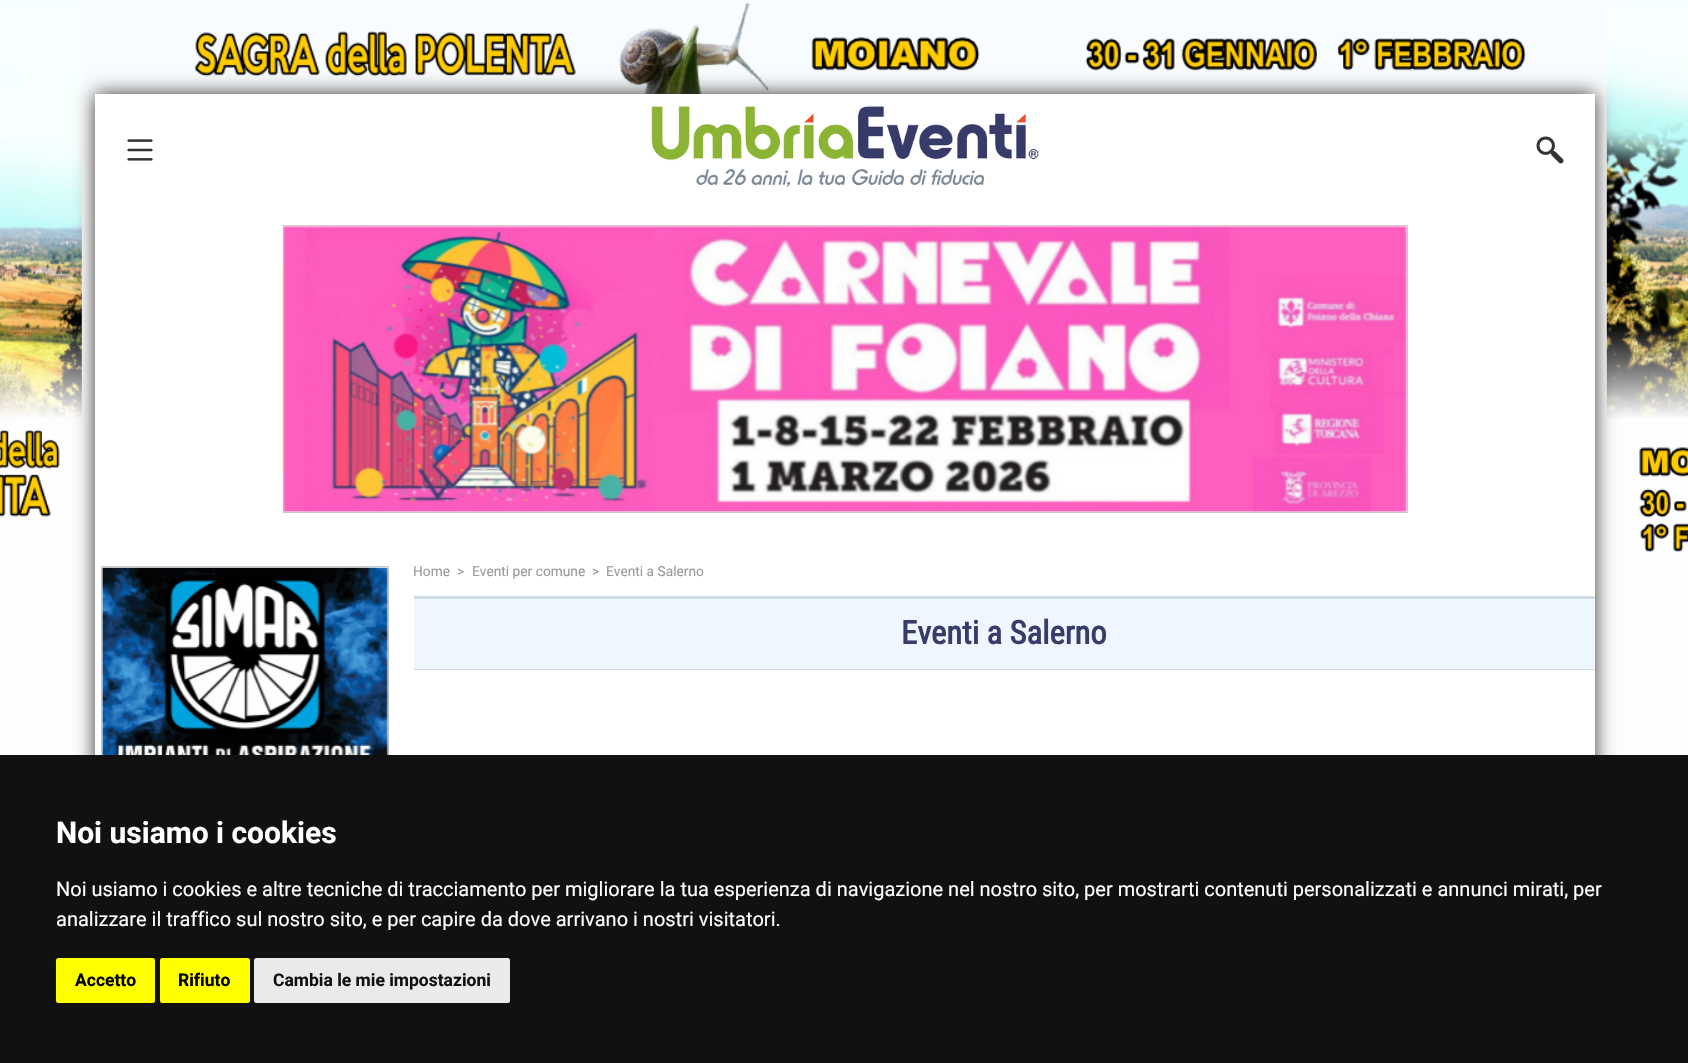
void draw(SkCanvas* c) {
SkPaint p;
p.setAntiAlias(true);
auto F=[&](const char* family, int weight, float size, bool italic = false){SkFontStyle style(weight, SkFontStyle::kNormal_Width,italic ? SkFontStyle::kItalic_Slant : SkFontStyle::kUpright_Slant);SkFont result(fontMgr->matchFamilyStyle(family, style), size);result.setSubpixel(true);return result;};
auto T=[&](const char* s, float x, float y, const SkFont& font){c->drawString(s, x, y, font, p);};
auto R=[&](float x, float y, float w, float h){c->drawRect(SkRect::MakeXYWH(x, y, w, h), p);};
auto Q=[&](float x, float y, float w, float h, float radius){c->drawRoundRect(SkRect::MakeXYWH(x, y, w, h), radius, radius, p);};
auto I=[&](const char* path, float x, float y, float w, float h){auto image = SkImages::DeferredFromEncodedData(SkData::MakeFromFileName(path));c->drawImageRect(image, SkRect::MakeXYWH(x, y, w, h), SkSamplingOptions());};
c->clear(0xfff9fcfe);
I("1.png",0,2,1688,753);
p.setColor(0xff333333);
p.setMaskFilter(SkMaskFilter::MakeBlur(kNormal_SkBlurStyle, 9.5));
c->drawRect(SkRect::MakeXYWH(95,94,1500,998),p);
p.setMaskFilter(nullptr);
p.setColor(0xffffffff);
R(95,94,1500,661);
I("2.png",127,139,26,22);
I("3.png",651,106,388,81);
I("4.png",1536,136,28,28);
I("5.png",282,264,1,210);
p.setStroke(true);
p.setStrokeWidth(1);
p.setColor(0xffcccccc);
c->drawRect(SkRect::MakeXYWH(283.5,225.5,1124,287),p);
I("6.png",283,226,1125,287);
c->drawRect(SkRect::MakeXYWH(101.5,566.5,287,237),p);
I("7.png",102,567,287,188);
auto f1 = F("Roboto",400,13.75);
p.setStroke(false);
p.setColor(0xff999999);
T("Home",413,576,f1);
T(">",457,576,f1);
T("Eventi per comune",472,576,f1);
T(">",592,576,f1);
T("Eventi a Salerno",606,576,f1);
p.setColor(0xffeef6ff);
R(414,599,1181,70);
p.setColor(0xffd0dbe8);
R(414,596,1181,3);
R(414,669,1181,1);
auto f2 = F("Roboto Condensed",700,32.5);
p.setColor(0xff383c6a);
T("Eventi a Salerno",901,644,f2);
p.setColor(0xff111111);
R(0,755,1688,308);
auto f3 = F("Roboto",700,30);
p.setColor(0xffffffff);
T("Noi usiamo i cookies",56,843,f3);
auto f4 = F("Roboto",400,20);
T("Noi usiamo i cookies e altre tecniche di tracciamento per migliorare la tua esperienza di navigazione nel nostro sito, per mostrarti contenuti personalizzati e annunci mirati, per",56,896,f4);
T("analizzare il traffico sul nostro sito, e per capire da dove arrivano i nostri visitatori.",56,926,f4);
p.setColor(0xffffff00);
Q(56,958,99,45,2.5);
auto f5 = F("Roboto",700,17.5);
p.setColor(0xff000000);
T("Accetto",75,986,f5);
p.setColor(0xffffff00);
Q(160,958,90,45,2.5);
p.setColor(0xff000000);
T("Rifiuto",178,986,f5);
p.setColor(0xffeaeaea);
Q(254,958,256,45,2.5);
p.setColor(0xff111111);
T("Cambia le mie impostazioni",273,986,f5);
}
